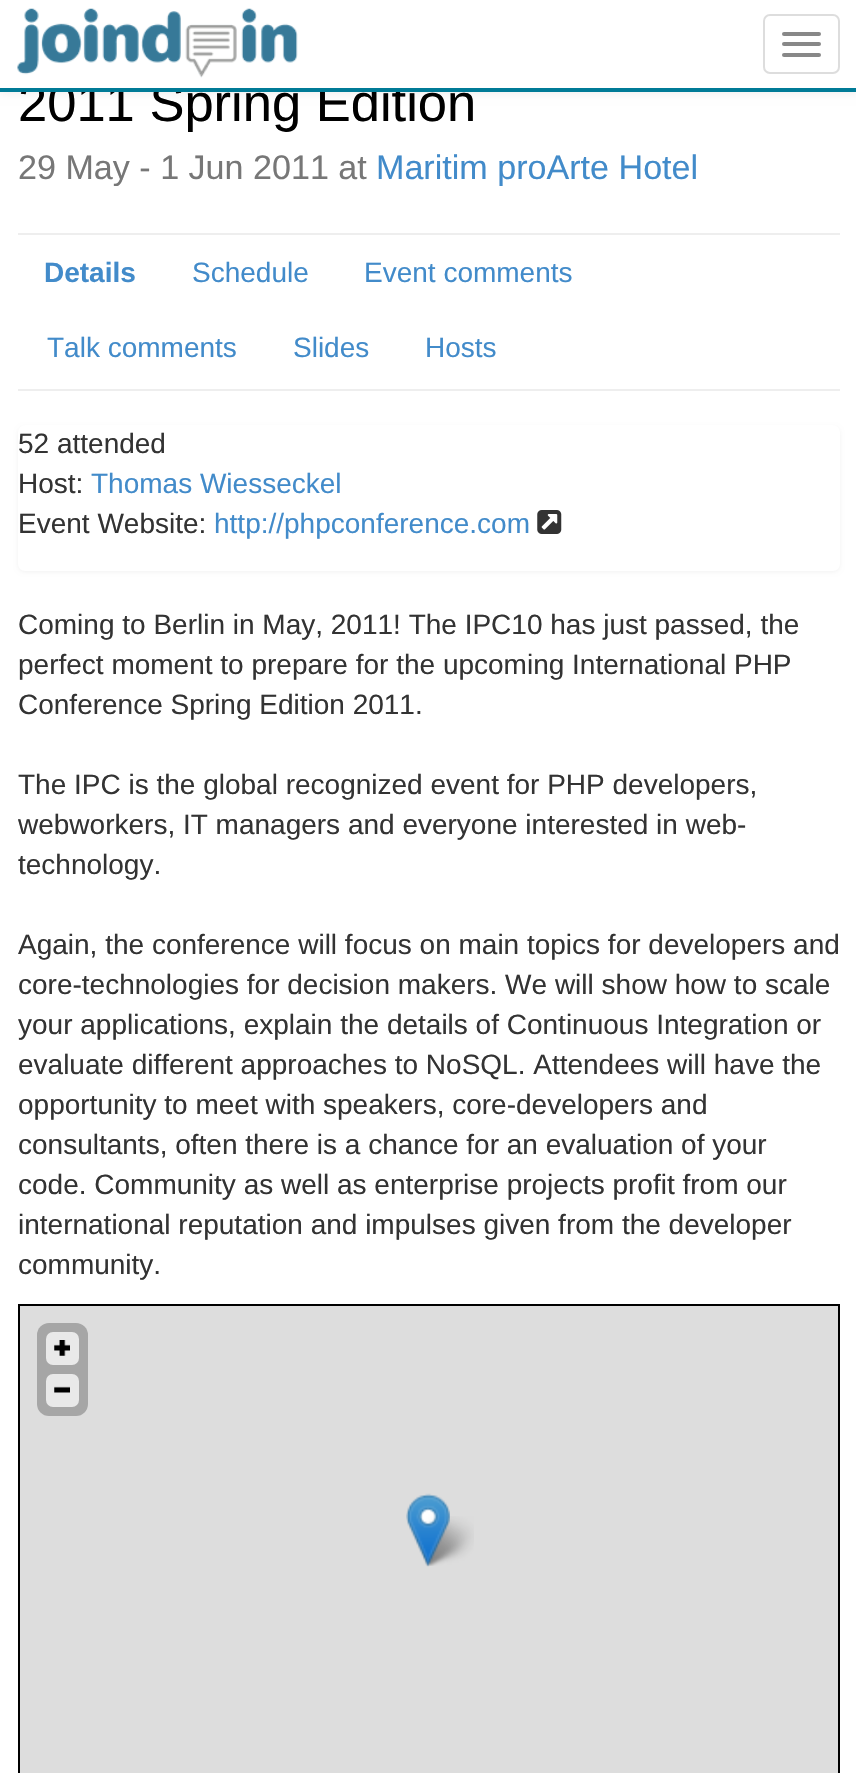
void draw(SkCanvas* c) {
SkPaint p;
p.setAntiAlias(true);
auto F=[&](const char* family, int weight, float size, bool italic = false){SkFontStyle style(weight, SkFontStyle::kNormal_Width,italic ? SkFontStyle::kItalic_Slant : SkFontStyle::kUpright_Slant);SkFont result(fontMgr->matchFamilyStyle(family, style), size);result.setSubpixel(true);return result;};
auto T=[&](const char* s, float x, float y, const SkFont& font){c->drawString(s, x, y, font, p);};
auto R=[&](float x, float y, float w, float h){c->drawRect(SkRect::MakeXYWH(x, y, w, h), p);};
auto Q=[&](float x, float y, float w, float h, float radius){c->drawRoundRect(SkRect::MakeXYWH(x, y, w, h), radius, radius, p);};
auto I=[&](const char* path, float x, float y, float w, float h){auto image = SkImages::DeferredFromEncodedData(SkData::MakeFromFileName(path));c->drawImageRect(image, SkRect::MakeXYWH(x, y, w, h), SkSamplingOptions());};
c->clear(0xffffffff);
p.setColor(0x12000000);
p.setMaskFilter(SkMaskFilter::MakeBlur(kNormal_SkBlurStyle, 4.5));
c->drawRect(SkRect::MakeXYWH(0,2,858,91),p);
p.setMaskFilter(nullptr);
auto f1 = F("Liberation Sans",400,52.5);
p.setColor(0xff000000);
T("2011 Spring Edition",18,121,f1);
p.setColor(0xffffffff);
R(0,0,856,88);
p.setColor(0xff007b97);
R(0,88,856,4);
I("1.png",17,8,281,70);
p.setStroke(true);
p.setStrokeWidth(2);
p.setColor(0xffdddddd);
c->drawRoundRect(SkRect::MakeXYWH(764,15,75,58),6,6,p);
p.setStroke(false);
p.setColor(0xff888888);
Q(782,32,39,4,2);
Q(782,42,39,4,2);
Q(782,53,39,4,2);
p.setColor(0xffeeeeee);
R(18,389,822,2);
auto f2 = F("Liberation Sans",400,34.1);
p.setColor(0xff777777);
T("29 May - 1 Jun 2011 at",18,179,f2);
p.setColor(0xff428bca);
T("Maritim proArte Hotel",376,179,f2);
p.setColor(0xffeeeeee);
R(18,233,822,2);
auto f3 = F("Liberation Sans",700,28);
p.setColor(0xff428bca);
T("Details",44,282,f3);
auto f4 = F("Liberation Sans",400,28);
T("Schedule",192,282,f4);
T("Event comments",364,282,f4);
T("Talk comments",47,357,f4);
T("Slides",293,357,f4);
T("Hosts",425,357,f4);
p.setColor(0x0d000000);
p.setMaskFilter(SkMaskFilter::MakeBlur(kNormal_SkBlurStyle, 2));
c->drawRoundRect(SkRect::MakeXYWH(18,427,822,145),7,7,p);
p.setMaskFilter(nullptr);
p.setColor(0xffffffff);
Q(18,425,822,146,7);
p.setColor(0xff333333);
T("52 attended",18,453,f4);
T("Host:",18,493,f4);
p.setColor(0xff428bca);
T("Thomas Wiesseckel",91,493,f4);
p.setColor(0xff333333);
T("Event Website:",18,533,f4);
p.setColor(0xff428bca);
T("http://phpconference.com",214,533,f4);
I("2.png",537,510,25,24);
p.setColor(0xff333333);
T("Coming to Berlin in May, 2011! The IPC10 has just passed, the",18,634,f4);
T("perfect moment to prepare for the upcoming International PHP",18,674,f4);
T("Conference Spring Edition 2011.",18,714,f4);
T("The IPC is the global recognized event for PHP developers,",18,794,f4);
T("webworkers, IT managers and everyone interested in web-",18,834,f4);
T("technology.",18,874,f4);
T("Again, the conference will focus on main topics for developers and",18,954,f4);
T("core-technologies for decision makers. We will show how to scale",18,994,f4);
T("your applications, explain the details of Continuous Integration or",18,1034,f4);
T("evaluate different approaches to NoSQL. Attendees will have the",18,1074,f4);
T("opportunity to meet with speakers, core-developers and",18,1114,f4);
T("consultants, often there is a chance for an evaluation of your",18,1154,f4);
T("code. Community as well as enterprise projects profit from our",18,1194,f4);
T("international reputation and impulses given from the developer",18,1234,f4);
T("community.",18,1274,f4);
p.setColor(0xffdddddd);
c->drawRect(SkRect::MakeXYWH(19,1305,820,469),p);
p.setStroke(true);
p.setColor(0xff000000);
c->drawRect(SkRect::MakeXYWH(19,1305,820,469),p);
p.setStroke(false);
p.setColor(0xffa6a6a6);
Q(37,1323,51,93,12);
p.setColor(0xffe9e9e9);
Q(46,1332,33,33,7);
I("3.png",54,1340,16,16);
Q(46,1374,33,33,7);
I("4.png",54,1386,16,7);
I("6.png",422,1516,52,50);
I("5.png",406,1493,44,74);
}
